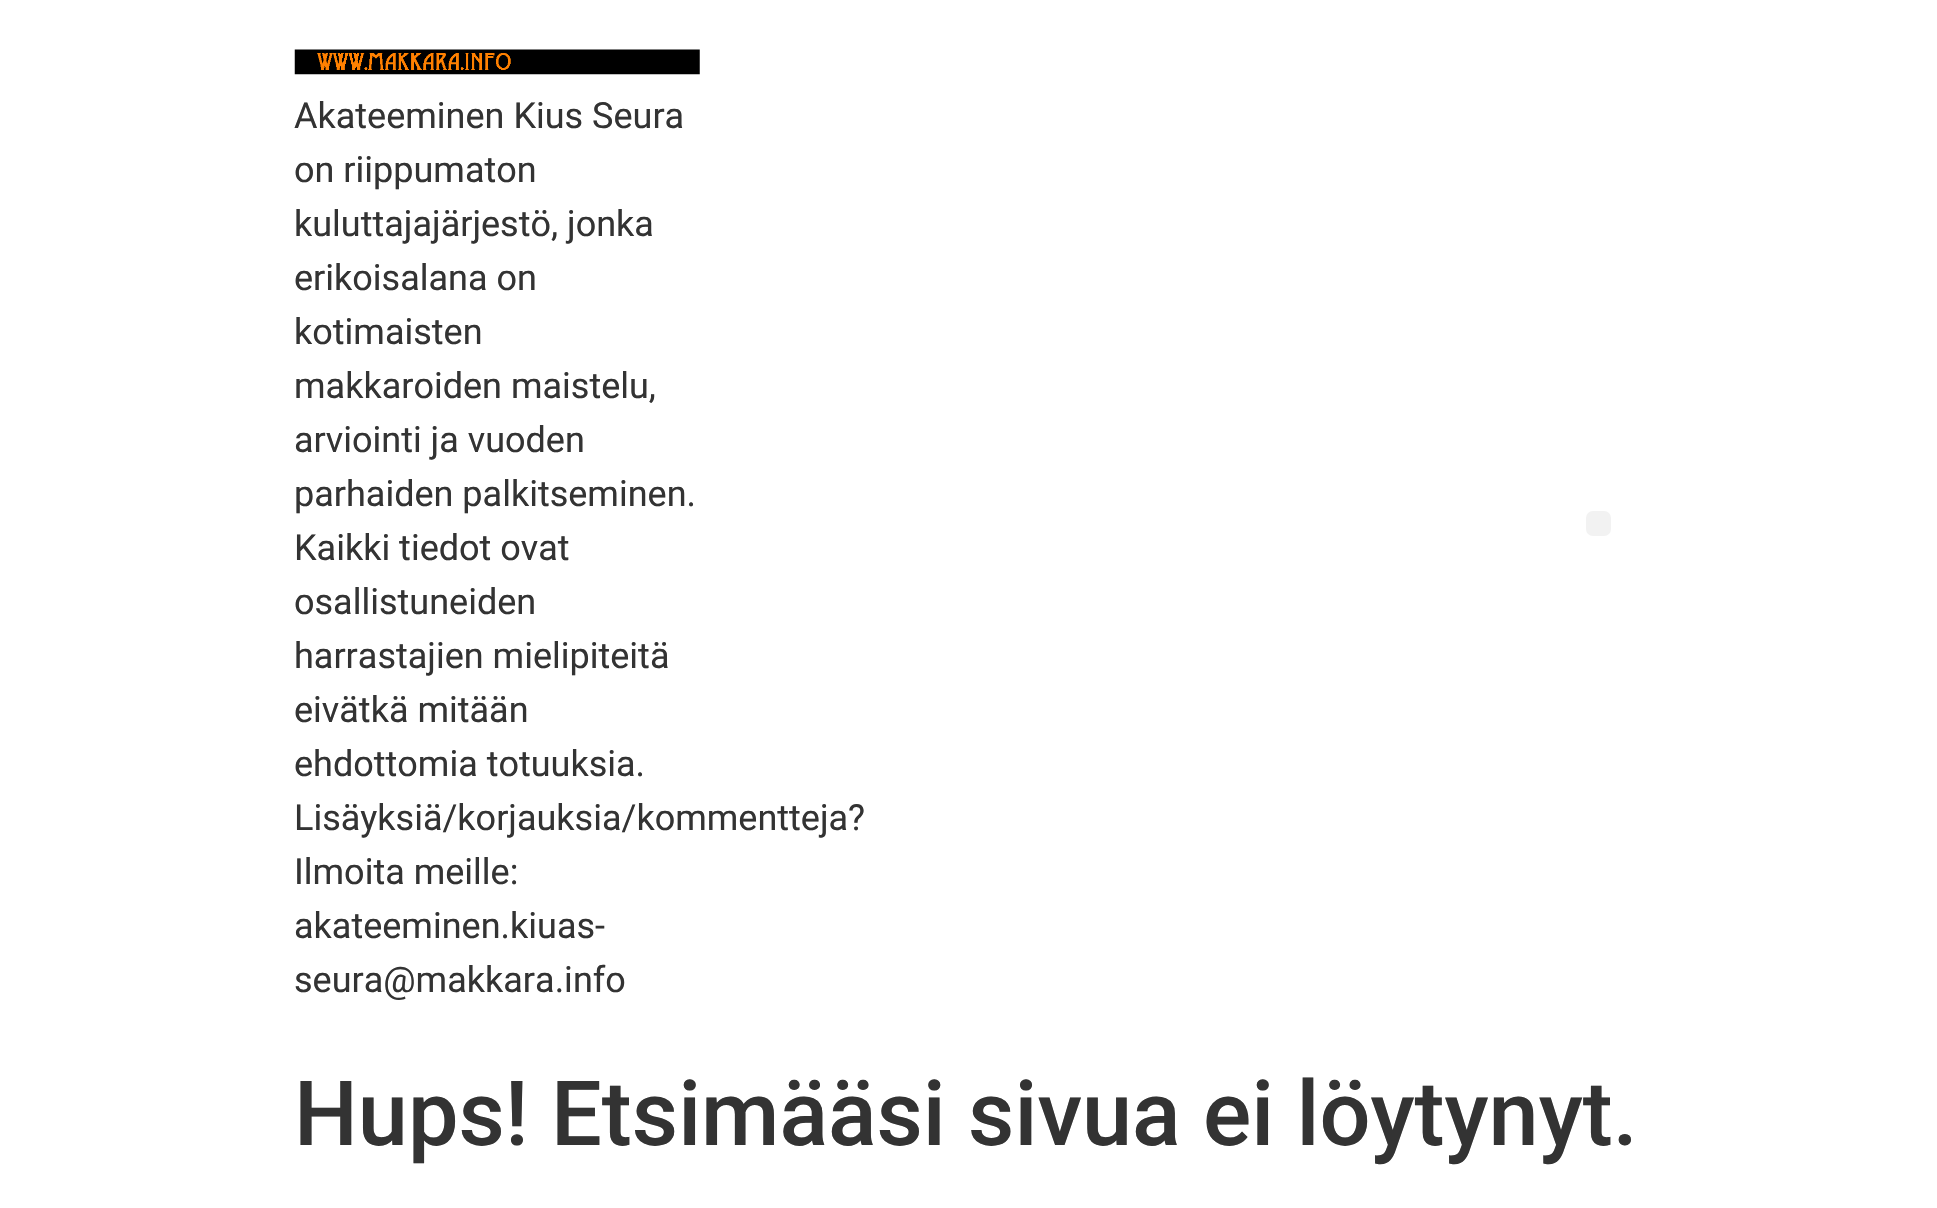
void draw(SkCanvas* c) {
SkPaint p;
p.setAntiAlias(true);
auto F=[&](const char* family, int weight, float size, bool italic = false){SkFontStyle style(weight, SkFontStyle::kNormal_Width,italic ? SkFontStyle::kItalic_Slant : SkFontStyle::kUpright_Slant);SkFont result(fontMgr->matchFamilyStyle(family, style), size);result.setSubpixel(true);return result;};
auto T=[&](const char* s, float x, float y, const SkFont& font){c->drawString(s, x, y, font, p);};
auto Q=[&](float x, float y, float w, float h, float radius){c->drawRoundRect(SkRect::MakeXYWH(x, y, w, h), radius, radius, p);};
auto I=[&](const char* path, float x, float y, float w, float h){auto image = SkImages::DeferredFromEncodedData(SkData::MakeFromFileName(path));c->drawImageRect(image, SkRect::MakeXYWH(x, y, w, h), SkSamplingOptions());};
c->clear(0xffffffff);
I("1.png",294,49,406,26);
auto f1 = F("Roboto",400,36);
p.setColor(0xff333333);
T("Akateeminen Kius Seura",294,128,f1);
T("on riippumaton",294,182,f1);
T("kuluttajajärjestö, jonka",294,236,f1);
T("erikoisalana on",294,290,f1);
T("kotimaisten",294,344,f1);
T("makkaroiden maistelu,",294,398,f1);
T("arviointi ja vuoden",294,452,f1);
T("parhaiden palkitseminen.",294,506,f1);
T("Kaikki tiedot ovat",294,560,f1);
T("osallistuneiden",294,614,f1);
T("harrastajien mielipiteitä",294,668,f1);
T("eivätkä mitään",294,722,f1);
T("ehdottomia totuuksia.",294,776,f1);
T("Lisäyksiä/korjauksia/kommentteja?",294,830,f1);
T("Ilmoita meille:",294,884,f1);
T("akateeminen.kiuas-",294,938,f1);
T("seura@makkara.info",294,992,f1);
p.setColor(0xfff2f2f2);
Q(1586,511,25,25,7);
auto f2 = F("Roboto",500,90);
p.setColor(0xff333333);
T("Hups! Etsimääsi sivua ei löytynyt.",294,1145,f2);
}
